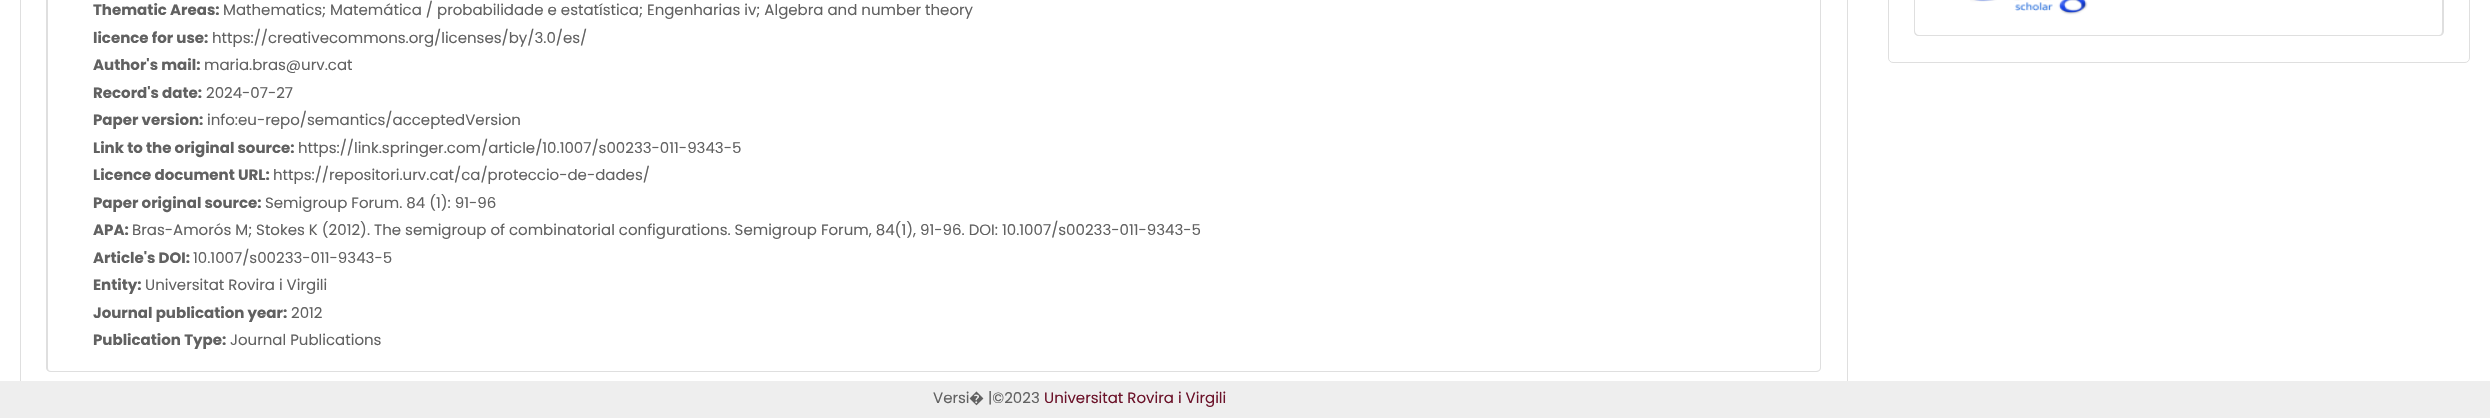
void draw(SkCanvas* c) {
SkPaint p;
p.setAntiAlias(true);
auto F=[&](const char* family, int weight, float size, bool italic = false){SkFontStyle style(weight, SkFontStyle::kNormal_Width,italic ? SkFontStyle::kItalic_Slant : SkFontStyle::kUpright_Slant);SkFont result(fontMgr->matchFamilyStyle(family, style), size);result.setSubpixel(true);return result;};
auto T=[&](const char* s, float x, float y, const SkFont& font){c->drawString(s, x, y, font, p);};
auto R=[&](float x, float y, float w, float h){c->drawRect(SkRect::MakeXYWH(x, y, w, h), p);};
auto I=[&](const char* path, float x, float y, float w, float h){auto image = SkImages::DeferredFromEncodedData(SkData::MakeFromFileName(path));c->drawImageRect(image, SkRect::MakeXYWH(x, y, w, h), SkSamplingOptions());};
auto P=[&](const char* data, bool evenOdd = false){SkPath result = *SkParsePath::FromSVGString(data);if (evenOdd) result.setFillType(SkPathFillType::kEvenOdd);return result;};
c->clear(0xffffffff);
p.setStroke(true);
p.setStrokeWidth(1);
p.setColor(0xffdfdfdf);
c->drawRect(SkRect::MakeXYWH(20.5,-.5,1827,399),p);
p.setStroke(false);
c->drawPath(P("M46-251h1775v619c0 2-2 4-5 4h-1765c-3 0-5-2-5-4zm2 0h1772v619c0 2-2 3-4 3h-1765c-2 0-3-1-3-3z",true),p);
auto f1 = F("Poppins",700,15);
p.setColor(0xff616161);
T("Thematic Areas:",93,15,f1);
auto f2 = F("Poppins",400,15);
T("Mathematics; Matemática / probabilidade e estatística; Engenharias iv; Algebra and number theory",223,15,f2);
T("licence for use:",93,43,f1);
T("https://creativecommons.org/licenses/by/3.0/es/",212,43,f2);
T("Author's mail:",93,70,f1);
T("maria.bras@urv.cat",204,70,f2);
T("Record's date:",93,98,f1);
T("2024-07-27",206,98,f2);
T("Paper version:",93,125,f1);
T("info:eu-repo/semantics/acceptedVersion",207,125,f2);
T("Link to the original source:",93,153,f1);
T("https://link.springer.com/article/10.1007/s00233-011-9343-5",298,153,f2);
T("Licence document URL:",93,180,f1);
T("https://repositori.urv.cat/ca/proteccio-de-dades/",273,180,f2);
T("Paper original source:",93,208,f1);
T("Semigroup Forum. 84 (1): 91-96",265,208,f2);
T("APA:",93,235,f1);
T("Bras-Amorós M; Stokes K (2012). The semigroup of combinatorial configurations. Semigroup Forum, 84(1), 91-96. DOI: 10.1007/s00233-011-9343-5",132,235,f2);
T("Article's DOI:",93,263,f1);
T("10.1007/s00233-011-9343-5",193,263,f2);
T("Entity:",93,290,f1);
T("Universitat Rovira i Virgili",145,290,f2);
T("Journal publication year:",93,318,f1);
T("2012",291,318,f2);
T("Publication Type:",93,345,f1);
T("Journal Publications",230,345,f2);
p.setStroke(true);
p.setColor(0xffdfdfdf);
c->drawRoundRect(SkRect::MakeXYWH(1888.5,-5.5,581,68),4.5,4.5,p);
p.setStroke(false);
c->drawPath(P("M1914-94h530v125c0 3-2 5-5 5h-520c-3 0-5-2-5-5zm1 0h527v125c0 2-1 4-3 4h-520c-2 0-4-2-4-4z",true),p);
I("1.png",1970,0,118,15);
p.setColor(0xffeeeeee);
R(0,381,2490,37);
p.setColor(0xff616161);
T("Versi",933,403,f2);
auto f3 = F("Noto Sans",400,15);
T("�",969,403,f3);
T("|©2023",988,403,f2);
p.setColor(0xff6b1229);
T("Universitat Rovira i Virgili",1044,403,f2);
}
